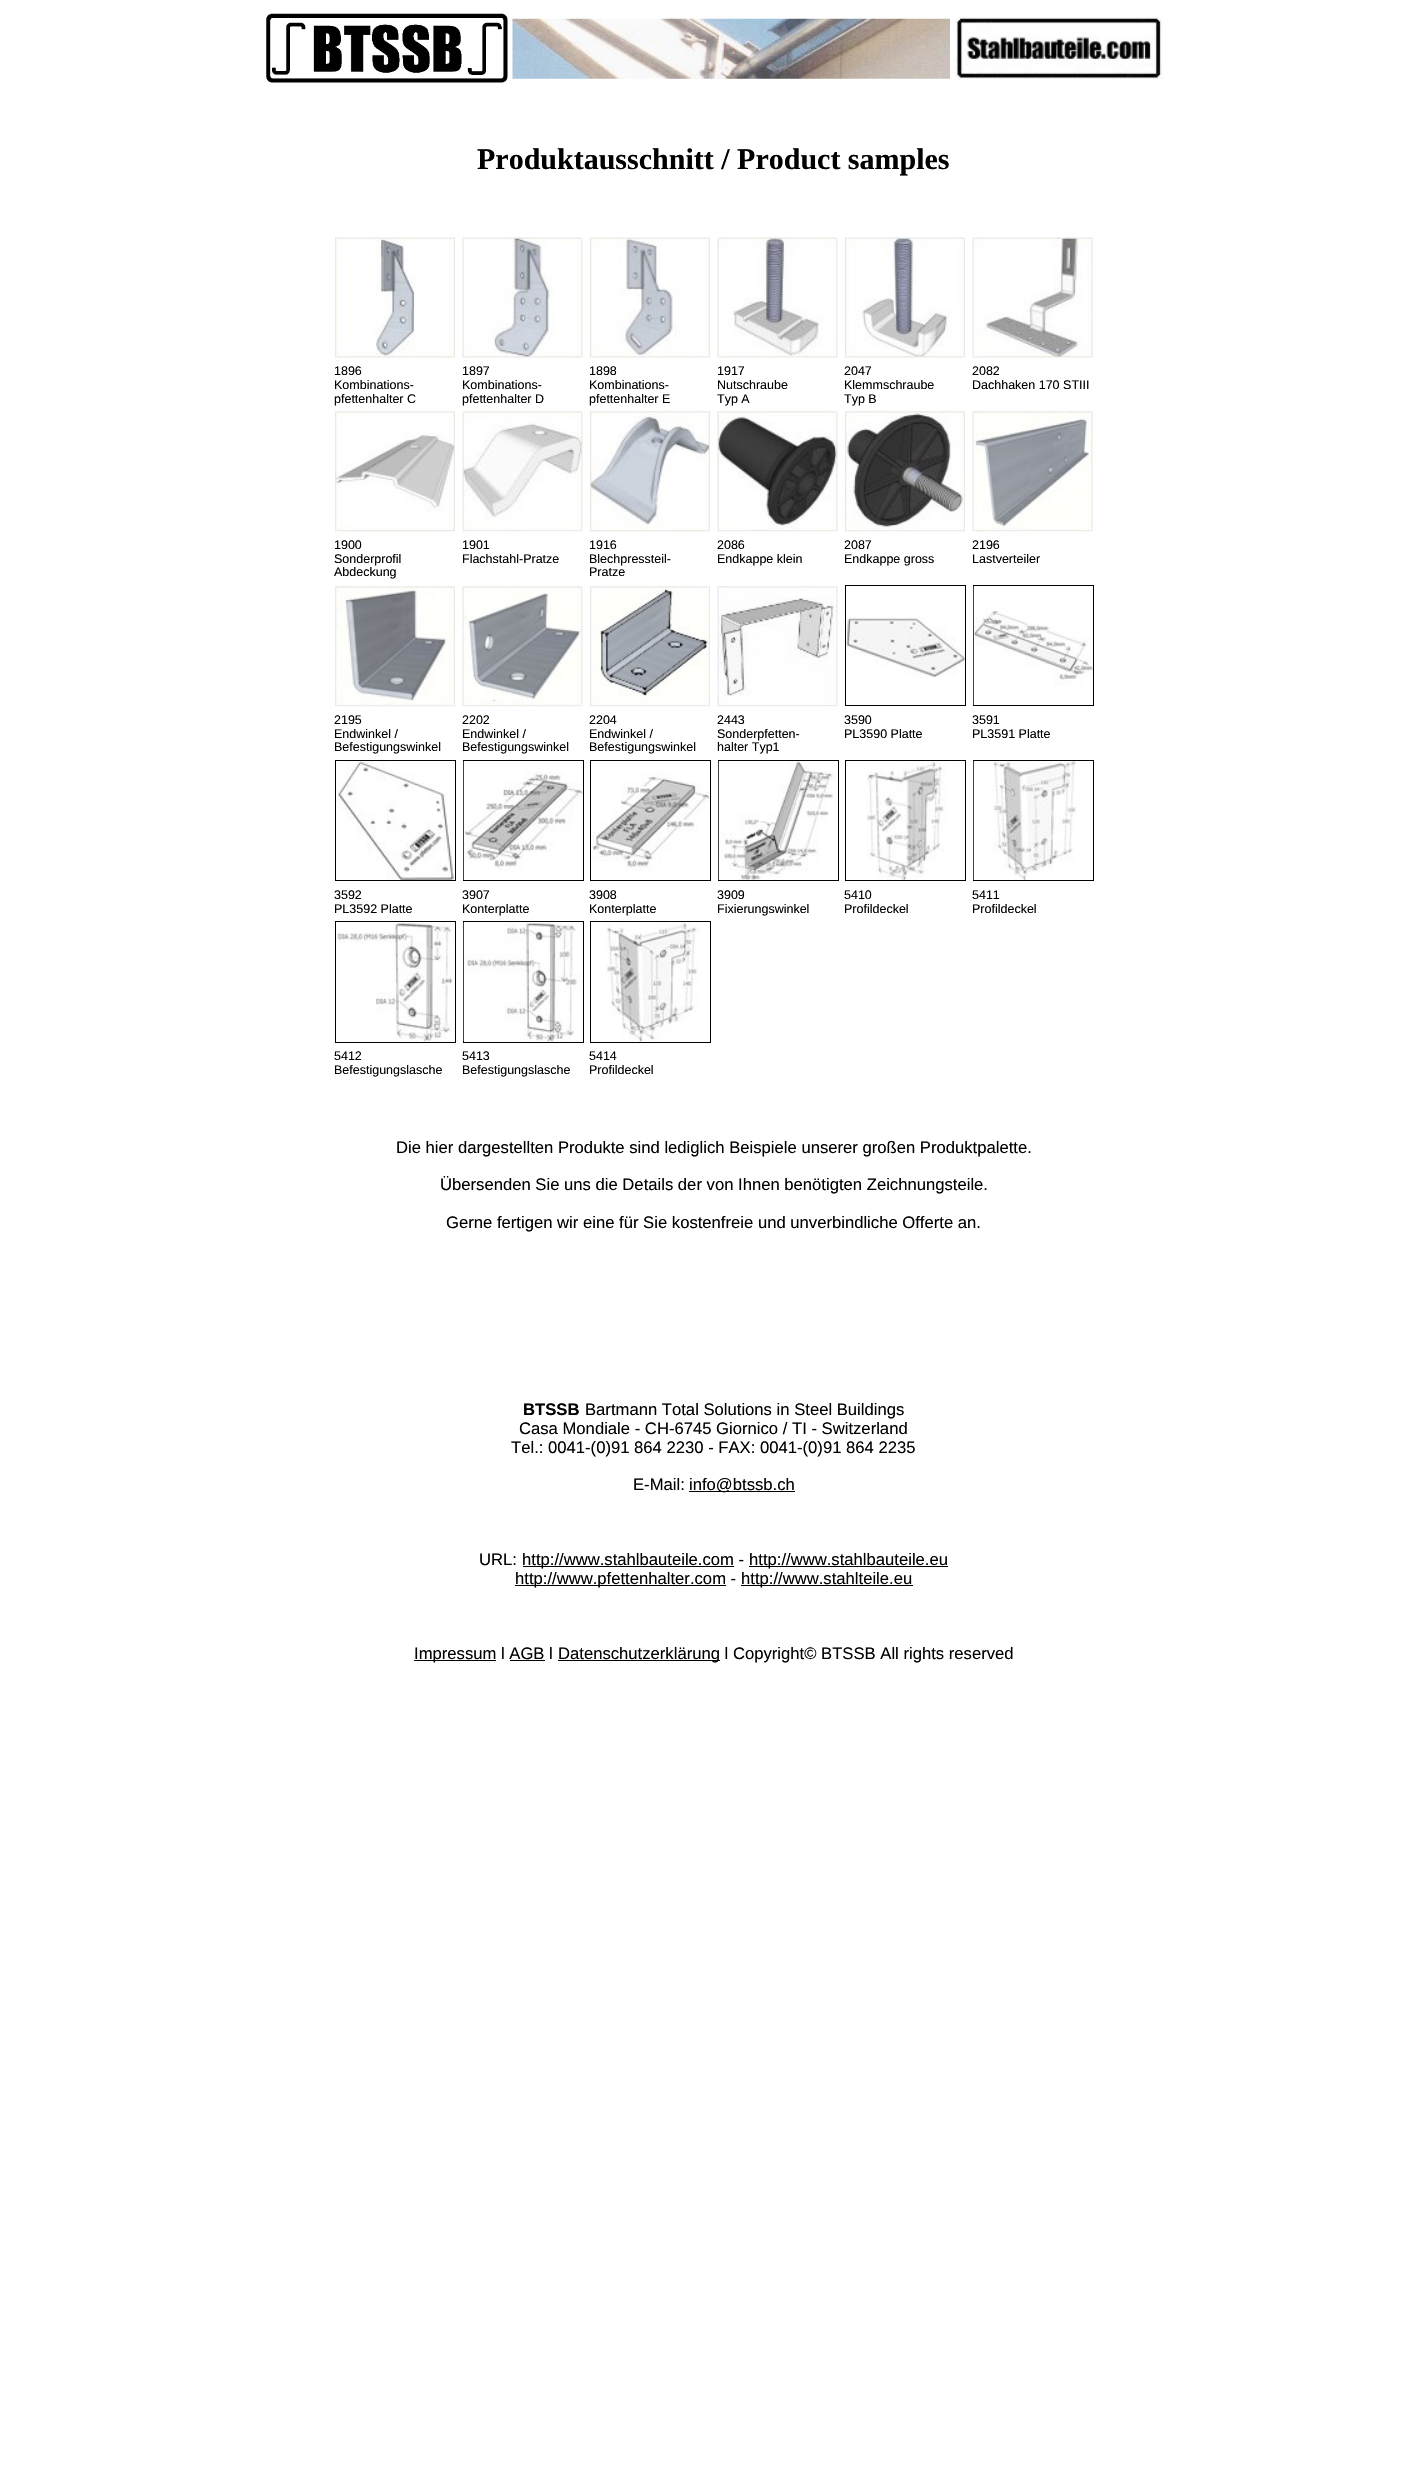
void draw(SkCanvas* c) {
SkPaint p;
p.setAntiAlias(true);
auto F=[&](const char* family, int weight, float size, bool italic = false){SkFontStyle style(weight, SkFontStyle::kNormal_Width,italic ? SkFontStyle::kItalic_Slant : SkFontStyle::kUpright_Slant);SkFont result(fontMgr->matchFamilyStyle(family, style), size);result.setSubpixel(true);return result;};
auto T=[&](const char* s, float x, float y, const SkFont& font){c->drawString(s, x, y, font, p);};
auto R=[&](float x, float y, float w, float h){c->drawRect(SkRect::MakeXYWH(x, y, w, h), p);};
auto I=[&](const char* path, float x, float y, float w, float h){auto image = SkImages::DeferredFromEncodedData(SkData::MakeFromFileName(path));c->drawImageRect(image, SkRect::MakeXYWH(x, y, w, h), SkSamplingOptions());};
c->clear(0xffffffff);
I("1.png",266,13,242,70);
I("2.png",512,18,438,61);
I("3.png",955,17,208,63);
auto f1 = F("Liberation Serif",700,30);
p.setColor(0xff000000);
T("Produktausschnitt / Product samples",477,169,f1);
I("4.png",335,237,120,121);
I("5.png",462,237,121,121);
I("6.png",590,237,120,121);
I("7.png",717,237,121,121);
I("8.png",845,237,120,121);
I("9.png",972,237,121,121);
auto f2 = F("Liberation Sans",400,12.5);
T("1896",334,375,f2);
T("Kombinations-",334,389,f2);
T("pfettenhalter C",334,403,f2);
T("1897",462,375,f2);
T("Kombinations-",462,389,f2);
T("pfettenhalter D",462,403,f2);
T("1898",589,375,f2);
T("Kombinations-",589,389,f2);
T("pfettenhalter E",589,403,f2);
T("1917",717,375,f2);
T("Nutschraube",717,389,f2);
T("Typ A",717,403,f2);
T("2047",844,375,f2);
T("Klemmschraube",844,389,f2);
T("Typ B",844,403,f2);
T("2082",972,375,f2);
T("Dachhaken 170 STIII",972,389,f2);
I("10.png",335,411,120,121);
I("11.png",462,411,121,121);
I("12.png",590,411,120,121);
I("13.png",717,411,121,121);
I("14.png",845,411,120,121);
I("15.png",972,411,121,121);
T("1900",334,549,f2);
T("Sonderprofil",334,563,f2);
T("Abdeckung",334,576,f2);
T("1901",462,549,f2);
T("Flachstahl-Pratze",462,563,f2);
T("1916",589,549,f2);
T("Blechpressteil-",589,563,f2);
T("Pratze",589,576,f2);
T("2086",717,549,f2);
T("Endkappe klein",717,563,f2);
T("2087",844,549,f2);
T("Endkappe gross",844,563,f2);
T("2196",972,549,f2);
T("Lastverteiler",972,563,f2);
I("16.png",335,586,120,121);
I("17.png",462,586,121,121);
I("18.png",590,586,120,121);
I("19.png",717,586,121,121);
p.setStroke(true);
p.setStrokeWidth(1);
c->drawRect(SkRect::MakeXYWH(845.5,585.5,120,120),p);
I("20.png",846,616,119,62);
c->drawRect(SkRect::MakeXYWH(973.5,585.5,120,120),p);
I("21.png",973,586,120,119);
p.setStroke(false);
T("2195",334,724,f2);
T("Endwinkel /",334,738,f2);
T("Befestigungswinkel",334,751,f2);
T("2202",462,724,f2);
T("Endwinkel /",462,738,f2);
T("Befestigungswinkel",462,751,f2);
T("2204",589,724,f2);
T("Endwinkel /",589,738,f2);
T("Befestigungswinkel",589,751,f2);
T("2443",717,724,f2);
T("Sonderpfetten-",717,738,f2);
T("halter Typ1",717,751,f2);
T("3590",844,724,f2);
T("PL3590 Platte",844,738,f2);
T("3591",972,724,f2);
T("PL3591 Platte",972,738,f2);
p.setStroke(true);
c->drawRect(SkRect::MakeXYWH(335.5,760.5,120,120),p);
I("22.png",337,761,118,119);
c->drawRect(SkRect::MakeXYWH(463.5,760.5,120,120),p);
I("23.png",463,761,120,119);
c->drawRect(SkRect::MakeXYWH(590.5,760.5,120,120),p);
I("24.png",591,771,119,100);
c->drawRect(SkRect::MakeXYWH(718.5,760.5,120,120),p);
I("25.png",718,761,119,119);
c->drawRect(SkRect::MakeXYWH(845.5,760.5,120,120),p);
I("26.png",866,761,80,119);
c->drawRect(SkRect::MakeXYWH(973.5,760.5,120,120),p);
I("27.png",973,761,104,119);
p.setStroke(false);
T("3592",334,899,f2);
T("PL3592 Platte",334,913,f2);
T("3907",462,899,f2);
T("Konterplatte",462,913,f2);
T("3908",589,899,f2);
T("Konterplatte",589,913,f2);
T("3909",717,899,f2);
T("Fixierungswinkel",717,913,f2);
T("5410",844,899,f2);
T("Profildeckel",844,913,f2);
T("5411",972,899,f2);
T("Profildeckel",972,913,f2);
p.setStroke(true);
c->drawRect(SkRect::MakeXYWH(335.5,921.5,120,121),p);
I("28.png",336,922,119,120);
c->drawRect(SkRect::MakeXYWH(463.5,921.5,120,121),p);
I("29.png",463,922,120,120);
c->drawRect(SkRect::MakeXYWH(590.5,921.5,120,121),p);
I("30.png",605,922,96,120);
p.setStroke(false);
T("5412",334,1060,f2);
T("Befestigungslasche",334,1074,f2);
T("5413",462,1060,f2);
T("Befestigungslasche",462,1074,f2);
T("5414",589,1060,f2);
T("Profildeckel",589,1074,f2);
auto f3 = F("Liberation Sans",400,16.65);
T("Die hier dargestellten Produkte sind lediglich Beispiele unserer großen Produktpalette.",396,1153,f3);
T("Übersenden Sie uns die Details der von Ihnen benötigten Zeichnungsteile.",440,1190,f3);
T("Gerne fertigen wir eine für Sie kostenfreie und unverbindliche Offerte an.",446,1228,f3);
auto f4 = F("Liberation Sans",700,16.65);
T("BTSSB",523,1415,f4);
T("Bartmann Total Solutions in Steel Buildings",585,1415,f3);
T("Casa Mondiale - CH-6745 Giornico / TI - Switzerland",519,1434,f3);
T("Tel.: 0041-(0)91 864 2230 - FAX: 0041-(0)91 864 2235",511,1453,f3);
T("E-Mail:",633,1490,f3);
R(689,1491,106,1);
T("info@btssb.ch",689,1490,f3);
T("URL:",479,1565,f3);
R(523,1566,211,1);
T("http://www.stahlbauteile.com -",522,1565,f3);
R(749,1566,199,1);
T("http://www.stahlbauteile.eu",749,1565,f3);
R(515,1585,211,1);
T("http://www.pfettenhalter.com -",515,1584,f3);
R(741,1585,172,1);
T("http://www.stahlteile.eu",741,1584,f3);
R(414,1660,82,1);
T("Impressum l AGB l",414,1659,f3);
R(558,1660,162,1);
T("Datenschutzerklärung l Copyright© BTSSB All rights reserved",558,1659,f3);
R(510,1660,35,1);
}
